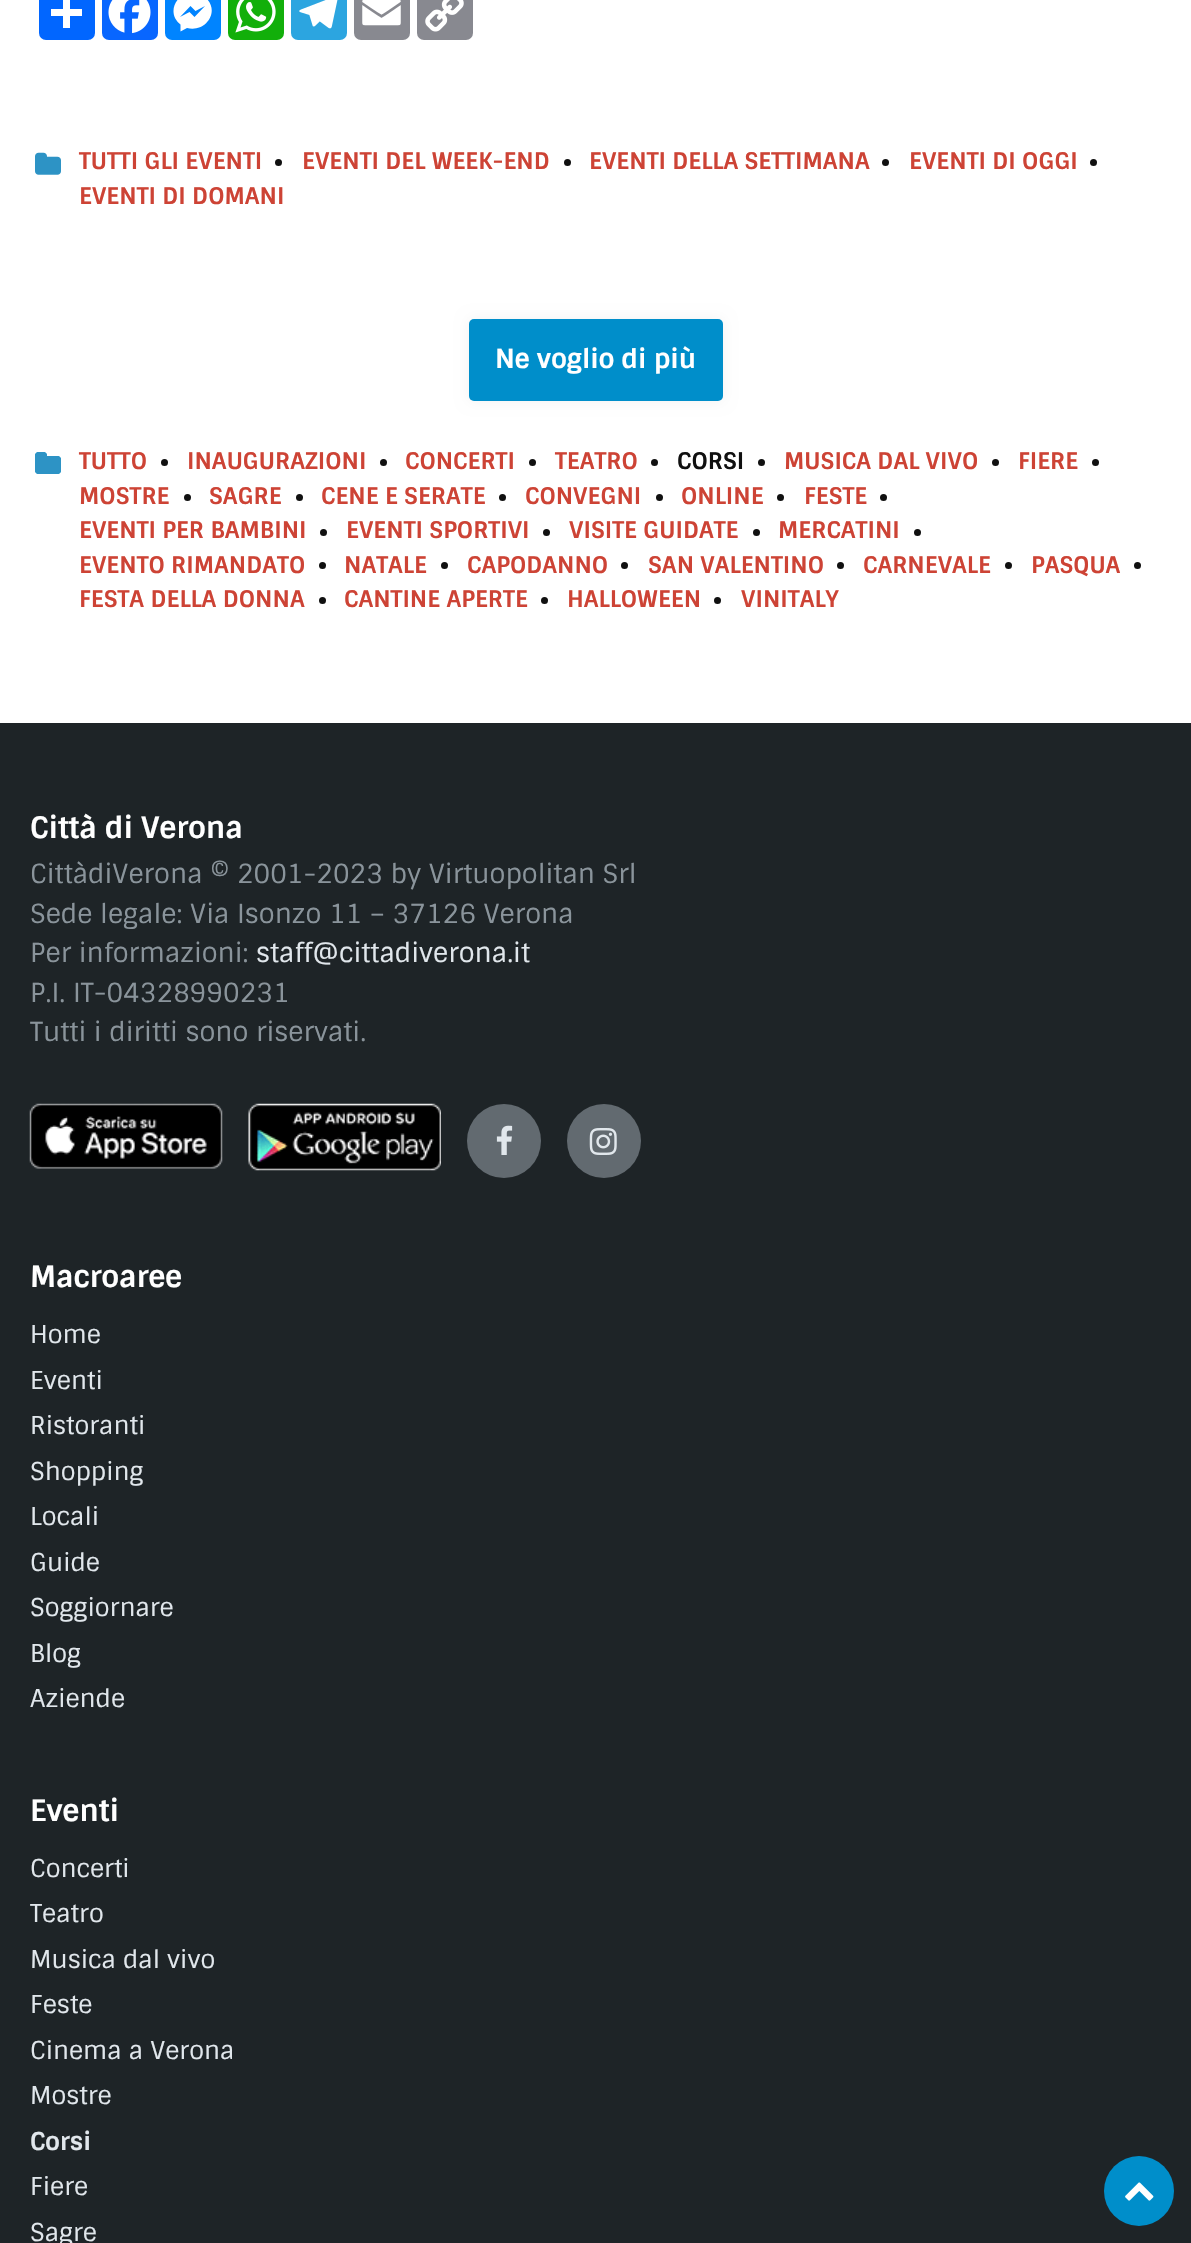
void draw(SkCanvas* c) {
SkPaint p;
p.setAntiAlias(true);
auto F=[&](const char* family, int weight, float size, bool italic = false){SkFontStyle style(weight, SkFontStyle::kNormal_Width,italic ? SkFontStyle::kItalic_Slant : SkFontStyle::kUpright_Slant);SkFont result(fontMgr->matchFamilyStyle(family, style), size);result.setSubpixel(true);return result;};
auto T=[&](const char* s, float x, float y, const SkFont& font){c->drawString(s, x, y, font, p);};
auto R=[&](float x, float y, float w, float h){c->drawRect(SkRect::MakeXYWH(x, y, w, h), p);};
auto Q=[&](float x, float y, float w, float h, float radius){c->drawRoundRect(SkRect::MakeXYWH(x, y, w, h), radius, radius, p);};
auto I=[&](const char* path, float x, float y, float w, float h){auto image = SkImages::DeferredFromEncodedData(SkData::MakeFromFileName(path));c->drawImageRect(image, SkRect::MakeXYWH(x, y, w, h), SkSamplingOptions());};
auto P=[&](const char* data, bool evenOdd = false){SkPath result = *SkParsePath::FromSVGString(data);if (evenOdd) result.setFillType(SkPathFillType::kEvenOdd);return result;};
c->clear(0xffffffff);
p.setColor(0xff0166ff);
Q(39,-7,56,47,7);
p.setColor(0xffffffff);
R(63,0,7,28);
R(51,9,31,7);
p.setColor(0xff0866ff);
Q(102,-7,56,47,7);
I("1.png",108,0,43,34);
p.setColor(0xff0084ff);
Q(165,-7,56,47,7);
p.setColor(0xffffffff);
c->drawPath(P("M192.5-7c-17.5 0-26 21-12 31.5v7l6.5-3.5c18 5 33.5-16 19-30c-3.5-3-8.5-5-13.5-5m2 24l-5-5l-9.5 5l10.5-11l5 5l9.5-5z"),p);
p.setColor(0xff12af0a);
Q(228,-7,56,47,7);
I("2.png",235,0,41,33);
p.setColor(0xff2ca5e0);
Q(291,-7,56,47,7);
I("3.png",299,0,39,29);
p.setColor(0xff888990);
Q(354,-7,56,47,7);
I("4.png",362,0,39,26);
Q(417,-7,56,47,7);
I("5.png",425,0,39,32);
I("6.png",35,152,26,23);
auto f1 = F("Sintony",700,23);
p.setColor(0xffcd4335);
T("TUTTI GLI EVENTI",79,169,f1);
p.setColor(0xff101010);
c->drawCircle(278.5,162.5,3.5,p);
p.setColor(0xffcd4335);
T("EVENTI DEL WEEK-END",302,169,f1);
p.setColor(0xff101010);
c->drawCircle(567.5,162.5,3.5,p);
p.setColor(0xffcd4335);
T("EVENTI DELLA SETTIMANA",589,169,f1);
p.setColor(0xff101010);
c->drawCircle(885.5,162.5,3.5,p);
p.setColor(0xffcd4335);
T("EVENTI DI OGGI",909,169,f1);
p.setColor(0xff101010);
c->drawCircle(1093.5,162.5,3.5,p);
p.setColor(0xffcd4335);
T("EVENTI DI DOMANI",79,204,f1);
p.setColor(0x0d000000);
p.setMaskFilter(SkMaskFilter::MakeBlur(kNormal_SkBlurStyle, 7));
c->drawRoundRect(SkRect::MakeXYWH(469,319,254,82),5,5,p);
p.setMaskFilter(nullptr);
p.setColor(0xff008eca);
Q(469,319,254,82,5);
auto f2 = F("Sintony",700,26.25);
p.setColor(0xffffffff);
T("Ne voglio di più",495,368,f2);
I("7.png",35,452,26,22);
I("8.png",35,452,26,22);
p.setColor(0xffcd4335);
T("TUTTO",79,469,f1);
p.setColor(0xff101010);
c->drawCircle(164.5,462.5,3.5,p);
p.setColor(0xffcd4335);
T("INAUGURAZIONI",187,469,f1);
p.setColor(0xff101010);
c->drawCircle(383.5,462.5,3.5,p);
p.setColor(0xffcd4335);
T("CONCERTI",405,469,f1);
p.setColor(0xff101010);
c->drawCircle(532.5,462.5,3.5,p);
p.setColor(0xffcd4335);
T("TEATRO",555,469,f1);
p.setColor(0xff101010);
c->drawCircle(654.5,462.5,3.5,p);
T("CORSI",677,469,f1);
c->drawCircle(761.5,462.5,3.5,p);
p.setColor(0xffcd4335);
T("MUSICA DAL VIVO",784,469,f1);
p.setColor(0xff101010);
c->drawCircle(995.5,462.5,3.5,p);
p.setColor(0xffcd4335);
T("FIERE",1018,469,f1);
p.setColor(0xff101010);
c->drawCircle(1095.5,462.5,3.5,p);
p.setColor(0xffcd4335);
T("MOSTRE",79,504,f1);
p.setColor(0xff101010);
c->drawCircle(187.5,497.5,3.5,p);
p.setColor(0xffcd4335);
T("SAGRE",209,504,f1);
p.setColor(0xff101010);
c->drawCircle(299.5,497.5,3.5,p);
p.setColor(0xffcd4335);
T("CENE E SERATE",321,504,f1);
p.setColor(0xff101010);
c->drawCircle(502.5,497.5,3.5,p);
p.setColor(0xffcd4335);
T("CONVEGNI",525,504,f1);
p.setColor(0xff101010);
c->drawCircle(659.5,497.5,3.5,p);
p.setColor(0xffcd4335);
T("ONLINE",681,504,f1);
p.setColor(0xff101010);
c->drawCircle(780.5,497.5,3.5,p);
p.setColor(0xffcd4335);
T("FESTE",804,504,f1);
p.setColor(0xff101010);
c->drawCircle(883.5,497.5,3.5,p);
p.setColor(0xffcd4335);
T("EVENTI PER BAMBINI",79,538,f1);
p.setColor(0xff101010);
c->drawCircle(323.5,532.5,3.5,p);
p.setColor(0xffcd4335);
T("EVENTI SPORTIVI",346,538,f1);
p.setColor(0xff101010);
c->drawCircle(546.5,532.5,3.5,p);
p.setColor(0xffcd4335);
T("VISITE GUIDATE",569,538,f1);
p.setColor(0xff101010);
c->drawCircle(756.5,532.5,3.5,p);
p.setColor(0xffcd4335);
T("MERCATINI",778,538,f1);
p.setColor(0xff101010);
c->drawCircle(917.5,532.5,3.5,p);
p.setColor(0xffcd4335);
T("EVENTO RIMANDATO",79,573,f1);
p.setColor(0xff101010);
c->drawCircle(322.5,565.5,3.5,p);
p.setColor(0xffcd4335);
T("NATALE",344,573,f1);
p.setColor(0xff101010);
c->drawCircle(444.5,565.5,3.5,p);
p.setColor(0xffcd4335);
T("CAPODANNO",467,573,f1);
p.setColor(0xff101010);
c->drawCircle(624.5,565.5,3.5,p);
p.setColor(0xffcd4335);
T("SAN VALENTINO",648,573,f1);
p.setColor(0xff101010);
c->drawCircle(840.5,565.5,3.5,p);
p.setColor(0xffcd4335);
T("CARNEVALE",863,573,f1);
p.setColor(0xff101010);
c->drawCircle(1008.5,565.5,3.5,p);
p.setColor(0xffcd4335);
T("PASQUA",1031,573,f1);
p.setColor(0xff101010);
c->drawCircle(1137.5,565.5,3.5,p);
p.setColor(0xffcd4335);
T("FESTA DELLA DONNA",79,607,f1);
p.setColor(0xff101010);
c->drawCircle(322.5,600.5,3.5,p);
p.setColor(0xffcd4335);
T("CANTINE APERTE",344,607,f1);
p.setColor(0xff101010);
c->drawCircle(544.5,600.5,3.5,p);
p.setColor(0xffcd4335);
T("HALLOWEEN",567,607,f1);
p.setColor(0xff101010);
c->drawCircle(717.5,600.5,3.5,p);
p.setColor(0xffcd4335);
T("VINITALY",741,607,f1);
p.setColor(0xff1e2427);
R(0,723,1191,1520);
auto f3 = F("Sintony",700,29.5);
p.setColor(0xffffffff);
T("Città di Verona",30,838,f3);
auto f4 = F("Sintony",400,26.25);
p.setColor(0xff8a949b);
T("CittàdiVerona © 2001-2023 by Virtuopolitan Srl",30,883,f4);
T("Sede legale: Via Isonzo 11 – 37126 Verona",30,923,f4);
T("Per informazioni:",30,962,f4);
p.setColor(0xffe1e7ec);
T("staff@cittadiverona.it",256,962,f4);
p.setColor(0xff8a949b);
T("P.I. IT-04328990231",30,1002,f4);
T("Tutti i diritti sono riservati.",30,1041,f4);
I("9.png",29,1103,194,66);
I("10.png",248,1103,193,68);
p.setColor(0xff626a70);
c->drawCircle(504,1141,37,p);
I("11.png",496,1125,17,30);
c->drawCircle(604,1141,37,p);
I("12.png",589,1128,28,27);
p.setColor(0xffffffff);
T("Macroaree",30,1287,f3);
auto f5 = F("Sintony",400,24.5);
p.setColor(0xffe1e7ec);
T("Home",30,1343,f5);
T("Eventi",30,1389,f5);
T("Ristoranti",30,1434,f5);
T("Shopping",30,1480,f5);
T("Locali",30,1525,f5);
T("Guide",30,1571,f5);
T("Soggiornare",30,1616,f5);
T("Blog",30,1662,f5);
T("Aziende",30,1707,f5);
p.setColor(0xffffffff);
T("Eventi",30,1821,f3);
p.setColor(0xffe1e7ec);
T("Concerti",30,1877,f5);
T("Teatro",30,1922,f5);
T("Musica dal vivo",30,1968,f5);
T("Feste",30,2013,f5);
T("Cinema a Verona",30,2059,f5);
T("Mostre",30,2104,f5);
auto f6 = F("Sintony",700,24.5);
T("Corsi",30,2150,f6);
T("Fiere",30,2195,f5);
T("Sagre",30,2241,f5);
p.setColor(0xff008eca);
c->drawCircle(1139,2191,35,p);
I("13.png",1125,2182,29,19);
}
